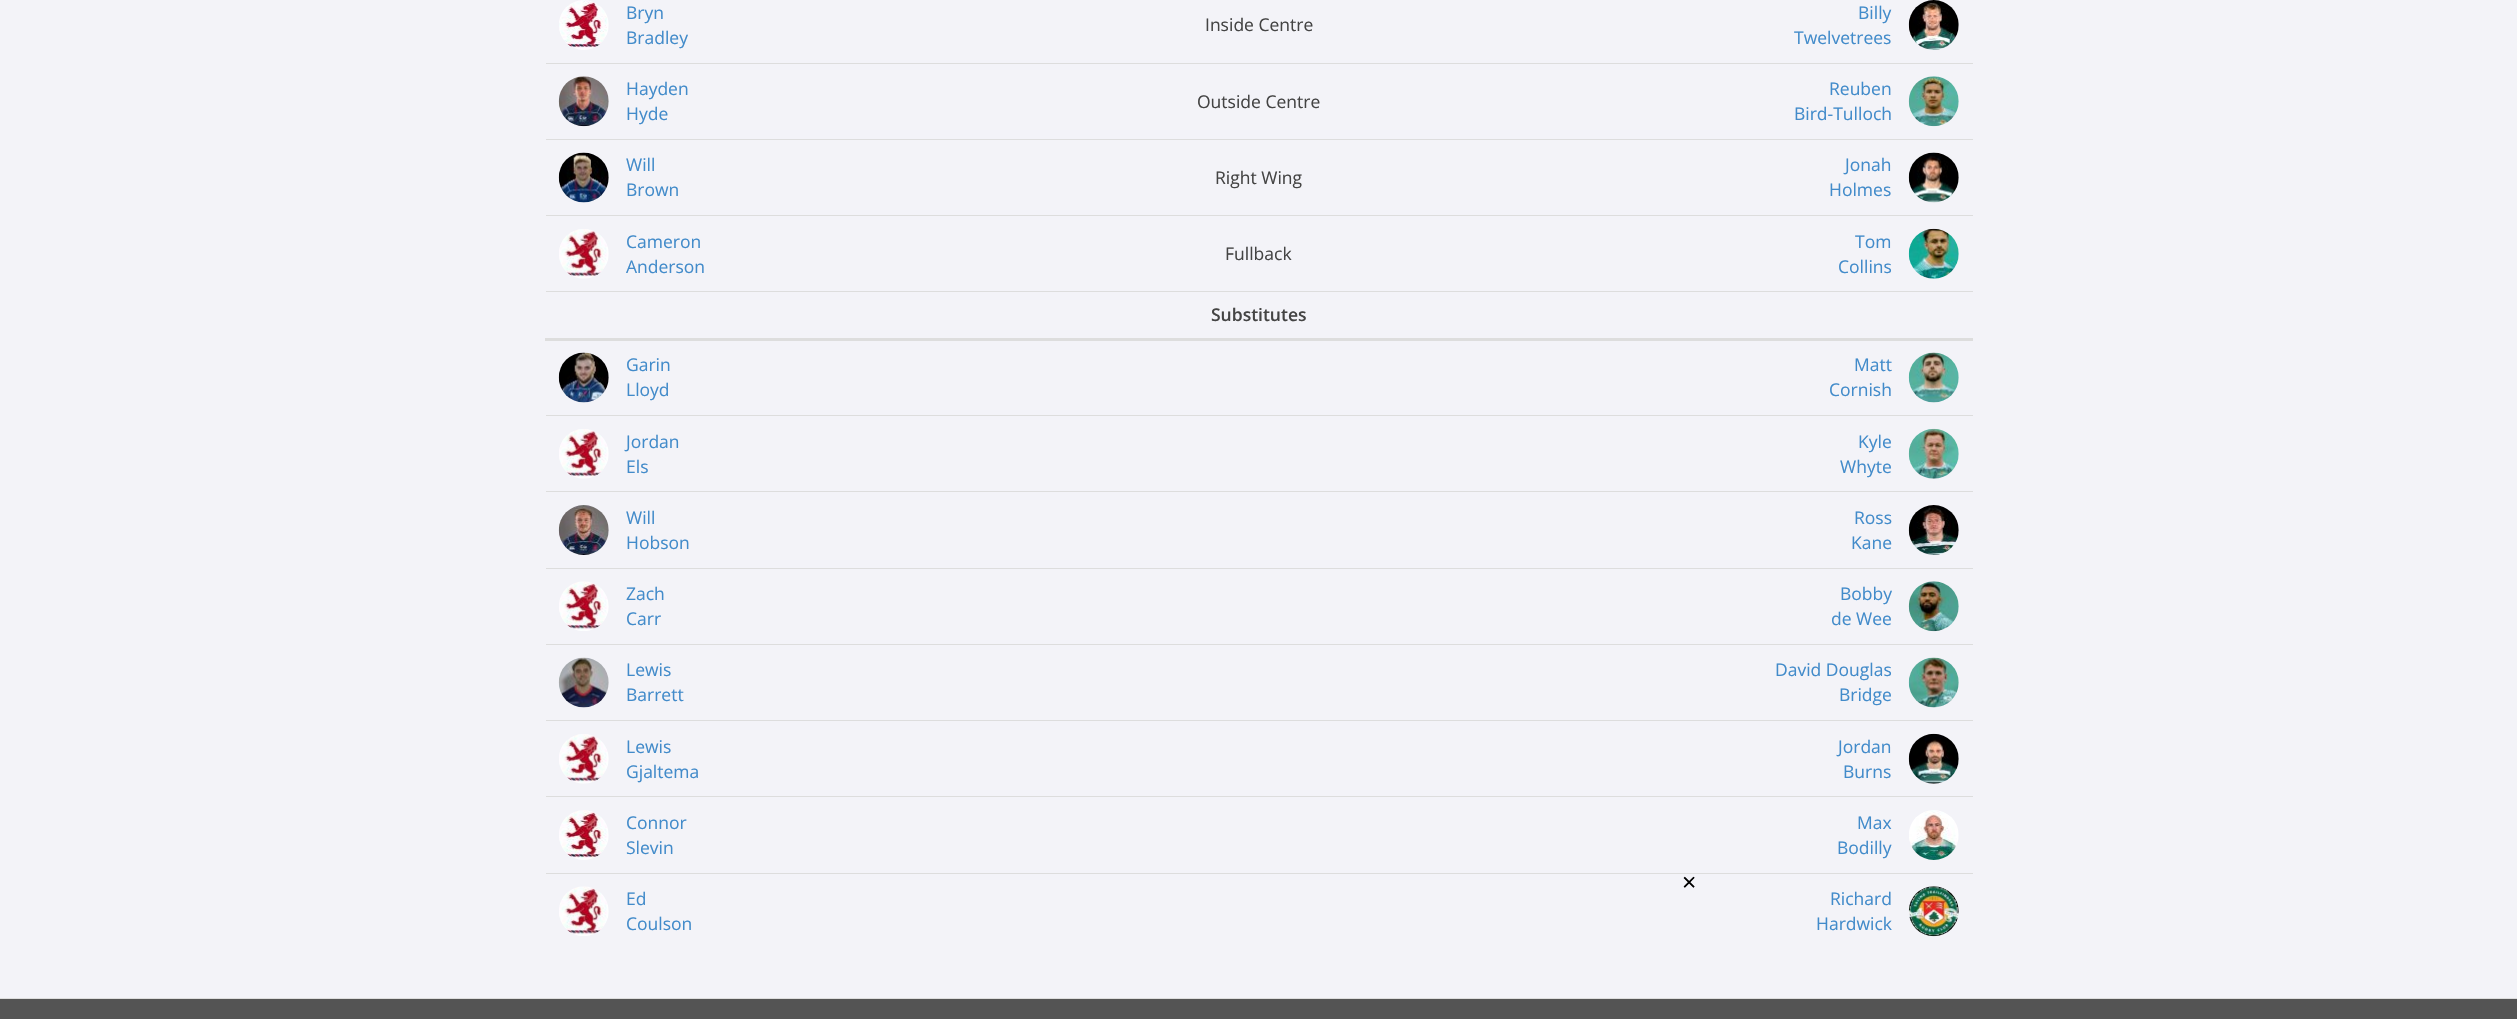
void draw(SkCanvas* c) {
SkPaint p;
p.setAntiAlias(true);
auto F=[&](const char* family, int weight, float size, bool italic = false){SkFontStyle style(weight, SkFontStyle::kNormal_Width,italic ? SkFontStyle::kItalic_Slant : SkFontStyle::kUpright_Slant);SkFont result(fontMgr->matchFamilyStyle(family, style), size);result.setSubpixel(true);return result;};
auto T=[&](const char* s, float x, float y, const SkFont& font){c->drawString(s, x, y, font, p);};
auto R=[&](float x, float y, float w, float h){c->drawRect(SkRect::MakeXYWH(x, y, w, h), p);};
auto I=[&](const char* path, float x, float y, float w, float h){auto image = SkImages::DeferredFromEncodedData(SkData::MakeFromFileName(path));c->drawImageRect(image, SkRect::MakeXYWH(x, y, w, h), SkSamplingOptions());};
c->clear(0xfff3f3f8);
I("1.png",559,0,50,50);
auto f1 = F("Open Sans",400,17.5);
p.setColor(0xff428bca);
T("Bryn",626,19,f1);
T("Bradley",626,44,f1);
p.setColor(0xff444444);
T("Inside Centre",1205,31,f1);
p.setColor(0xff428bca);
T("Billy",1858,19,f1);
T("Twelvetrees",1794,44,f1);
I("2.png",1908,0,51,50);
I("3.png",558,76,51,51);
T("Hayden",626,95,f1);
T("Hyde",626,120,f1);
p.setColor(0xff444444);
T("Outside Centre",1197,108,f1);
p.setColor(0xffdddddd);
R(546,63,1427,1);
p.setColor(0xff428bca);
T("Reuben",1829,95,f1);
T("Bird-Tulloch",1794,120,f1);
I("4.png",1908,76,51,51);
I("5.png",558,152,51,51);
T("Will",626,171,f1);
T("Brown",626,196,f1);
p.setColor(0xff444444);
T("Right Wing",1215,184,f1);
p.setColor(0xffdddddd);
R(546,139,1427,1);
p.setColor(0xff428bca);
T("Jonah",1845,171,f1);
T("Holmes",1829,196,f1);
I("6.png",1908,152,51,51);
I("7.png",559,229,50,50);
T("Cameron",626,248,f1);
T("Anderson",626,273,f1);
p.setColor(0xff444444);
T("Fullback",1225,260,f1);
p.setColor(0xffdddddd);
R(546,215,1427,1);
p.setColor(0xff428bca);
T("Tom",1855,248,f1);
T("Collins",1838,273,f1);
I("8.png",1908,228,51,51);
p.setColor(0xffdddddd);
R(546,291,1427,1);
R(545,338,1428,3);
auto f2 = F("Open Sans",600,17.5);
p.setColor(0xff444444);
T("Substitutes",1211,321,f2);
I("9.png",558,352,51,51);
p.setColor(0xff428bca);
T("Garin",626,371,f1);
T("Lloyd",626,396,f1);
T("Matt",1854,371,f1);
T("Cornish",1829,396,f1);
I("10.png",1908,352,51,51);
I("11.png",559,429,50,50);
T("Jordan",626,448,f1);
T("Els",626,473,f1);
p.setColor(0xffdddddd);
R(546,415,1427,1);
p.setColor(0xff428bca);
T("Kyle",1858,448,f1);
T("Whyte",1840,473,f1);
I("12.png",1908,428,51,51);
I("13.png",558,505,51,50);
T("Will",626,524,f1);
T("Hobson",626,549,f1);
p.setColor(0xffdddddd);
R(546,491,1427,1);
p.setColor(0xff428bca);
T("Ross",1854,524,f1);
T("Kane",1851,549,f1);
I("14.png",1908,505,51,50);
I("15.png",559,581,50,50);
T("Zach",626,600,f1);
T("Carr",626,625,f1);
p.setColor(0xffdddddd);
R(546,568,1427,1);
p.setColor(0xff428bca);
T("Bobby",1840,600,f1);
T("de Wee",1831,625,f1);
I("16.png",1908,581,51,51);
I("17.png",558,657,51,51);
T("Lewis",626,676,f1);
T("Barrett",626,701,f1);
p.setColor(0xffdddddd);
R(546,644,1427,1);
p.setColor(0xff428bca);
T("David Douglas",1775,676,f1);
T("Bridge",1839,701,f1);
I("18.png",1908,657,51,51);
I("11.png",559,734,50,50);
T("Lewis",626,753,f1);
T("Gjaltema",626,778,f1);
p.setColor(0xffdddddd);
R(546,720,1427,1);
p.setColor(0xff428bca);
T("Jordan",1838,753,f1);
T("Burns",1843,778,f1);
I("19.png",1908,733,51,51);
I("20.png",559,810,50,50);
T("Connor",626,829,f1);
T("Slevin",626,854,f1);
p.setColor(0xffdddddd);
R(546,796,1427,1);
p.setColor(0xff428bca);
T("Max",1857,829,f1);
T("Bodilly",1837,854,f1);
I("21.png",1909,810,50,50);
I("15.png",559,886,50,50);
T("Ed",626,905,f1);
T("Coulson",626,930,f1);
p.setColor(0xffdddddd);
R(546,873,1427,1);
p.setColor(0xff428bca);
T("Richard",1830,905,f1);
T("Hardwick",1816,930,f1);
I("22.png",1908,886,51,51);
auto f3 = F("Open Sans",400,25);
p.setColor(0xff000000);
T("×",1682,891,f3);
p.setColor(0xff545454);
R(0,999,2517,20);
p.setColor(0xffdddddd);
R(0,998,2517,1);
}
